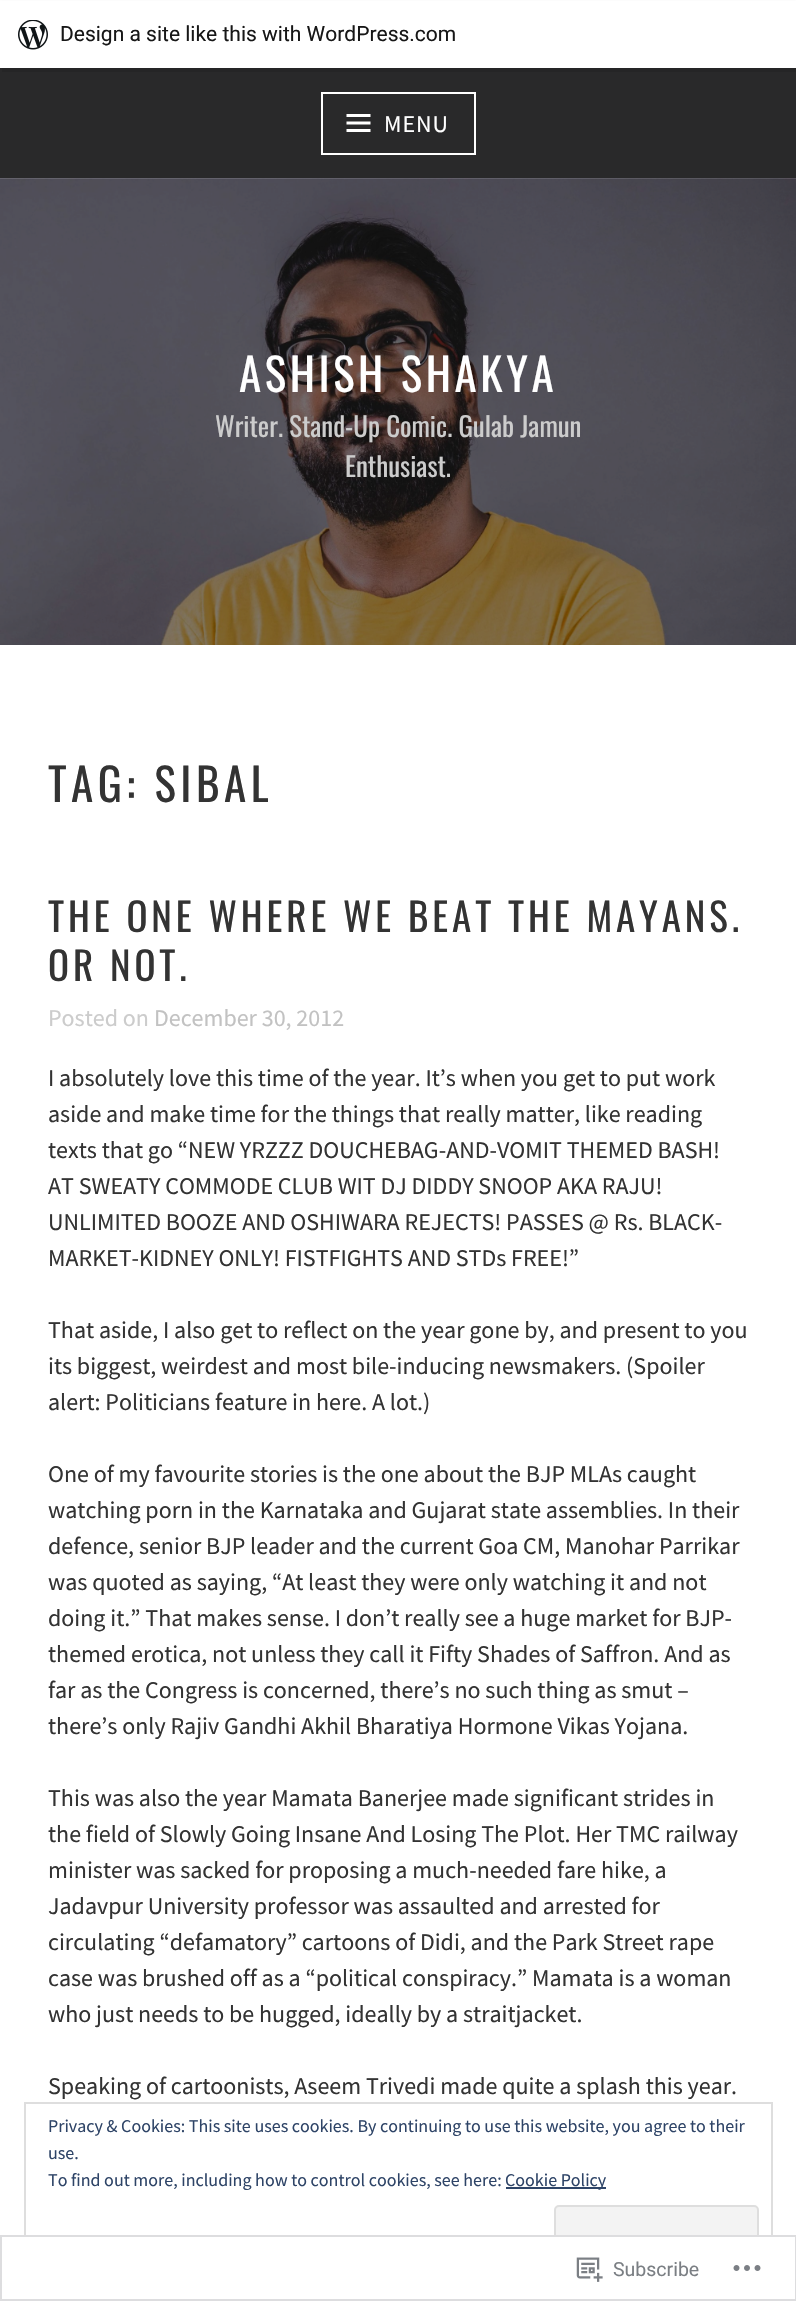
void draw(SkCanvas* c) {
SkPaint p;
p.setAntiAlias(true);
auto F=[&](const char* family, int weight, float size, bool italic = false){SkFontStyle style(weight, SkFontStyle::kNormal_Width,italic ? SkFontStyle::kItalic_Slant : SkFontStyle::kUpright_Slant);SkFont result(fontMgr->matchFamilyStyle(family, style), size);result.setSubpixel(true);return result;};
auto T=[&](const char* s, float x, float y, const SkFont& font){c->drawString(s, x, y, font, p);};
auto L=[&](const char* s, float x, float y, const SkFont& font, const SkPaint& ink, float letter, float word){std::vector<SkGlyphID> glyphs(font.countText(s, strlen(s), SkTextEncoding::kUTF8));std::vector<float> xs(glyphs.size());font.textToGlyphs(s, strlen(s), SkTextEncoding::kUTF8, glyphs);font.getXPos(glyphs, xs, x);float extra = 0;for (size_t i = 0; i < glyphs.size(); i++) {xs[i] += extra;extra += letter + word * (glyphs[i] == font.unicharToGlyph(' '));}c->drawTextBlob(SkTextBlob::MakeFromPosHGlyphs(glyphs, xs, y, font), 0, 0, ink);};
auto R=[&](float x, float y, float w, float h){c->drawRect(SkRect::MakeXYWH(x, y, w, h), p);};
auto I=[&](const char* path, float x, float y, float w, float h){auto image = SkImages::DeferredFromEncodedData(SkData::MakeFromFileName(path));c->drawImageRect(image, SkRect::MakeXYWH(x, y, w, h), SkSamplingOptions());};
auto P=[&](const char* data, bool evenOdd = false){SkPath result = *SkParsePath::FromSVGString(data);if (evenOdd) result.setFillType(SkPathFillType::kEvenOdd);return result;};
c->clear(0xffffffff);
p.setColor(0xff29292a);
R(0,68,796,111);
p.setColor(0x0d000000);
p.setMaskFilter(SkMaskFilter::MakeBlur(kNormal_SkBlurStyle, 1.5));
c->drawRect(SkRect::MakeXYWH(0,2,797,67),p);
p.setMaskFilter(nullptr);
p.setColor(0xff252526);
c->drawPath(P("M2 68v4h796v-67h-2v63z"),p);
p.setColor(0xffffffff);
R(0,1,796,67);
I("1.png",18,20,30,30);
auto f1 = F("Roboto",400,21);
p.setColor(0xff171717);
T("Design a site like this with WordPress.com",60,41,f1);
p.setStroke(true);
p.setStrokeWidth(2);
p.setColor(0xffffffff);
c->drawRect(SkRect::MakeXYWH(322,93,153,61),p);
I("2.png",346,114,25,18);
auto f2 = F("Source Sans Pro",400,24);
p.setStroke(false);
L("MENU",384,132,f2,p,1,0);
I("3.png",0,178,796,467);
auto f3 = F("Oswald",400,45);
L("ASHISH SHAKYA",239,392,f3,p,3.6,0);
auto f4 = F("Oswald",400,27);
p.setColor(0xffcccccc);
T("Writer. Stand-Up Comic. Gulab Jamun",215,437,f4);
T("Enthusiast.",345,477,f4);
p.setColor(0xff333333);
L("TAG: SIBAL",48,802,f3,p,4.5,0);
auto f5 = F("Oswald",400,39);
L("THE ONE WHERE WE BEAT THE MAYANS.",48,932,f5,p,3.9,0);
L("OR NOT.",48,981,f5,p,3.9,0);
p.setColor(0xffcccccc);
T("Posted on",48,1026,f2);
p.setColor(0xffc2c2c2);
T("December 30, 2012",154,1026,f2);
p.setColor(0xff333333);
T("I absolutely love this time of the year. It’s when you get to put work",48,1086,f2);
T("aside and make time for the things that really matter, like reading",48,1122,f2);
T("texts that go “NEW YRZZZ DOUCHEBAG-AND-VOMIT THEMED BASH!",48,1158,f2);
T("AT SWEATY COMMODE CLUB WIT DJ DIDDY SNOOP AKA RAJU!",48,1194,f2);
T("UNLIMITED BOOZE AND OSHIWARA REJECTS! PASSES @ Rs. BLACK-",48,1230,f2);
T("MARKET-KIDNEY ONLY! FISTFIGHTS AND STDs FREE!”",48,1266,f2);
T("That aside, I also get to reflect on the year gone by, and present to you",48,1338,f2);
T("its biggest, weirdest and most bile-inducing newsmakers. (Spoiler",48,1374,f2);
T("alert: Politicians feature in here. A lot.)",48,1410,f2);
T("One of my favourite stories is the one about the BJP MLAs caught",48,1482,f2);
T("watching porn in the Karnataka and Gujarat state assemblies. In their",48,1518,f2);
T("defence, senior BJP leader and the current Goa CM, Manohar Parrikar",48,1554,f2);
T("was quoted as saying, “At least they were only watching it and not",48,1590,f2);
T("doing it.” That makes sense. I don’t really see a huge market for BJP-",48,1626,f2);
T("themed erotica, not unless they call it Fifty Shades of Saffron. And as",48,1662,f2);
T("far as the Congress is concerned, there’s no such thing as smut –",48,1698,f2);
T("there’s only Rajiv Gandhi Akhil Bharatiya Hormone Vikas Yojana.",48,1734,f2);
T("This was also the year Mamata Banerjee made significant strides in",48,1806,f2);
T("the field of Slowly Going Insane And Losing The Plot. Her TMC railway",48,1842,f2);
T("minister was sacked for proposing a much-needed fare hike, a",48,1878,f2);
T("Jadavpur University professor was assaulted and arrested for",48,1914,f2);
T("circulating “defamatory” cartoons of Didi, and the Park Street rape",48,1950,f2);
T("case was brushed off as a “political conspiracy.” Mamata is a woman",48,1986,f2);
T("who just needs to be hugged, ideally by a straitjacket.",48,2022,f2);
T("Speaking of cartoonists, Aseem Trivedi made quite a splash this year.",48,2094,f2);
p.setStroke(true);
p.setColor(0xffdedede);
c->drawRect(SkRect::MakeXYWH(25,2103,747,173),p);
auto f6 = F("Source Sans Pro",400,18);
p.setStroke(false);
p.setColor(0xff2e4467);
T("Privacy & Cookies: This site uses cookies. By continuing to use this website, you agree to their",48,2132,f6);
T("use.",48,2159,f6);
T("To find out more, including how to control cookies, see here:",48,2186,f6);
R(506,2187,100,2);
T("Cookie Policy",505,2186,f6);
p.setColor(0xfff3f3f3);
c->drawRoundRect(SkRect::MakeXYWH(555,2206,203,57),4,4,p);
p.setStroke(true);
p.setColor(0xffdedede);
c->drawRoundRect(SkRect::MakeXYWH(555,2206,203,57),4,4,p);
p.setStroke(false);
p.setColor(0xfaffffff);
R(24,2235,749,42);
p.setStroke(true);
p.setColor(0xfadcdcde);
c->drawRect(SkRect::MakeXYWH(1,2236,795,64),p);
I("4.png",576,2257,27,25);
auto f7 = F("Roboto",400,19.5);
p.setStroke(false);
p.setColor(0xff7b7f84);
T("Subscribe",613,2276,f7);
I("5.png",733,2265,28,6);
}
